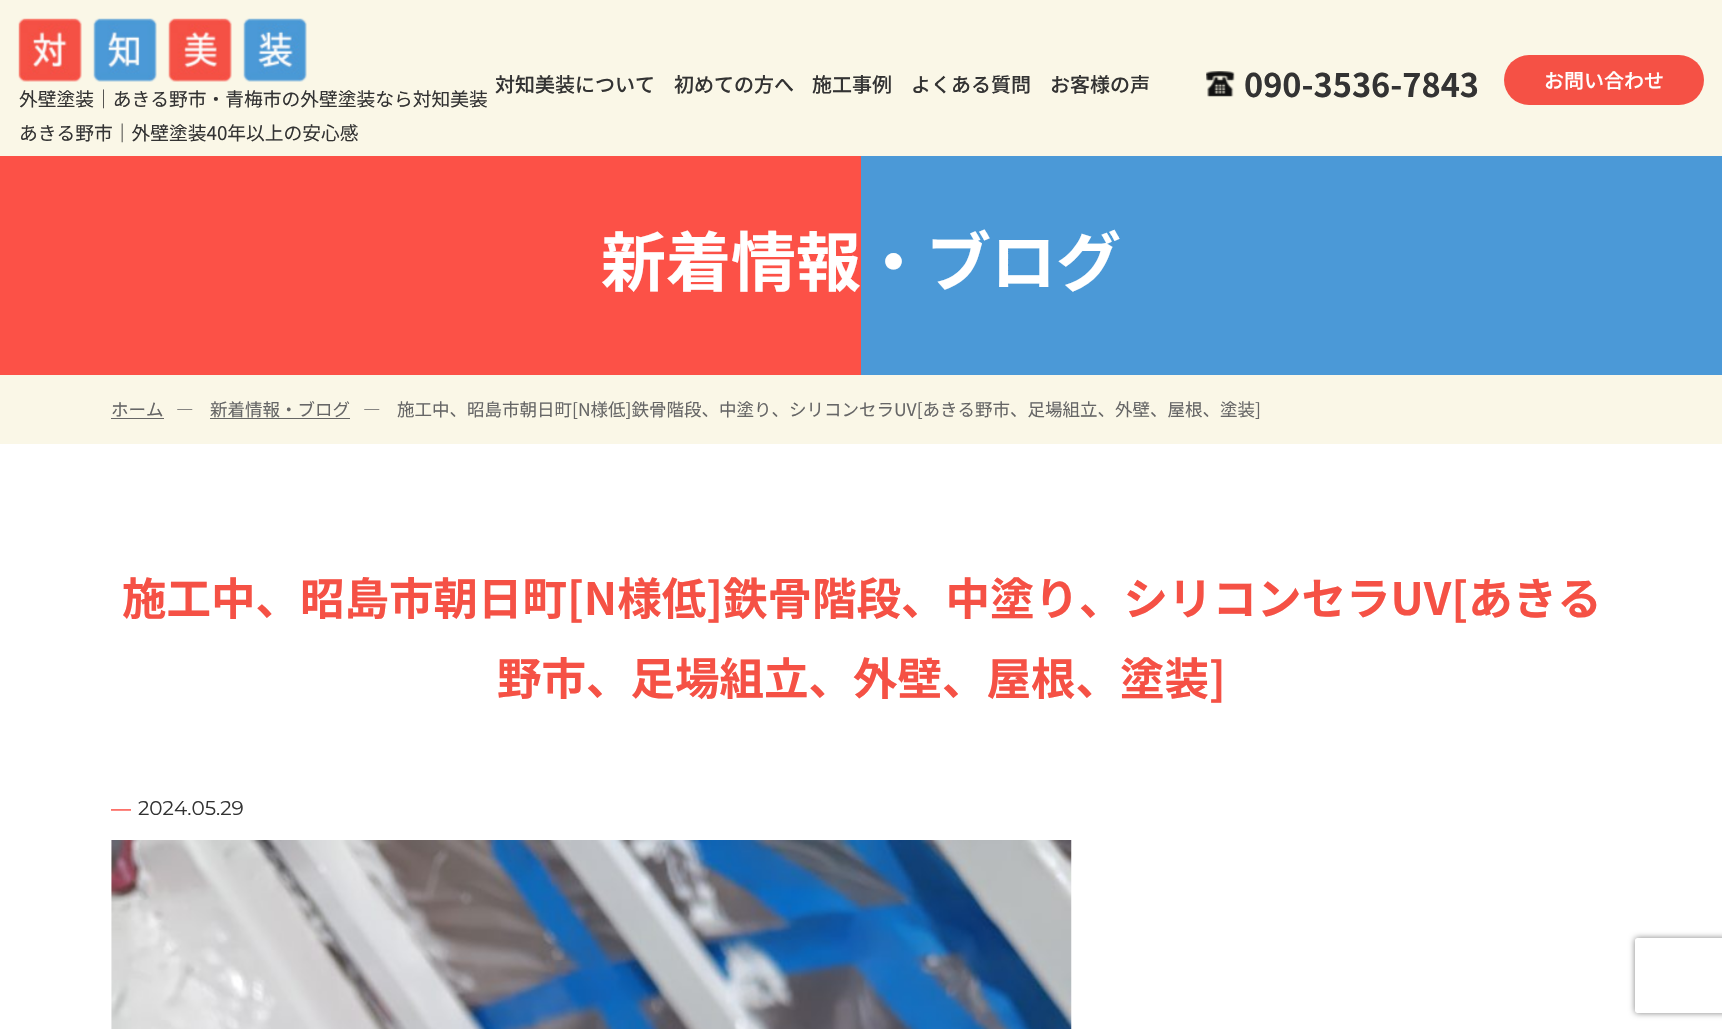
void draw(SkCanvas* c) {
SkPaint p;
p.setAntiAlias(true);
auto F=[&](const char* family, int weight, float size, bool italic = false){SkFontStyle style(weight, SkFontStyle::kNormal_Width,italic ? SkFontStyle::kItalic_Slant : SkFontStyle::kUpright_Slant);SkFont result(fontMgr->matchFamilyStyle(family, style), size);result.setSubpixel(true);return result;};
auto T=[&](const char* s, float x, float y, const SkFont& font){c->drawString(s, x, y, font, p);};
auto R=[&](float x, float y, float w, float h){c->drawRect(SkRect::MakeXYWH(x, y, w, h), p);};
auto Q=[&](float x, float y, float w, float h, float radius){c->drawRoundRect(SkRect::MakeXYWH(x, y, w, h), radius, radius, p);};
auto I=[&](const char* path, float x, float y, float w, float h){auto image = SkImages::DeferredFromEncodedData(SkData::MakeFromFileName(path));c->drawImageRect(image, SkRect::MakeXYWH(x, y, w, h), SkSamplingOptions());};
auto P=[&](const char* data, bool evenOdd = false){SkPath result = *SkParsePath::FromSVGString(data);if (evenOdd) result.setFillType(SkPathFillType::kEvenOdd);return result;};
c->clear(0xffffffff);
p.setColor(0xfffaf7e7);
R(0,0,1722,156);
auto f1 = F("Noto Sans JP",500,20);
p.setColor(0xff333333);
T("対知美装について",495,92,f1);
T("初めての方へ",674,92,f1);
T("施工事例",812,92,f1);
T("よくある質問",911,92,f1);
T("お客様の声",1050,92,f1);
I("1.png",1206,71,29,26);
auto f2 = F("Noto Sans JP",700,32.5);
T("090-3536-7843",1244,97,f2);
p.setColor(0xfff55145);
Q(1504,55,200,50,25);
p.setColor(0xffffffff);
T("お問い合わせ",1544,88,f1);
I("2.png",18,18,289,64);
auto f3 = F("Noto Sans JP",400,18.75);
p.setColor(0xff333333);
T("外壁塗装│あきる野市・青梅市の外壁塗装なら対知美装",19,106,f3);
T("あきる野市│外壁塗装40年以上の安心感",19,140,f3);
p.setColor(0xfffc5147);
R(0,156,861,219);
p.setColor(0xff4b99d7);
R(861,156,861,219);
auto f4 = F("Noto Sans JP",700,65);
p.setColor(0xffffffff);
T("新着情報・ブログ",601,286,f4);
p.setColor(0xfffaf7e7);
R(0,375,1722,69);
auto f5 = F("Noto Sans JP",400,17.5);
p.setColor(0xff666666);
T("ホーム",111,416,f5);
R(111,418,53,1);
T("―",176,416,f5);
T("新着情報・ブログ",210,416,f5);
R(210,418,140,1);
T("―",363,416,f5);
T("施工中、昭島市朝日町[N様低]鉄骨階段、中塗り、シリコンセラUV[あきる野市、足場組立、外壁、屋根、塗装]",397,416,f5);
auto f6 = F("Noto Sans JP",700,44.5);
p.setColor(0xfff55145);
T("施工中、昭島市朝日町[N様低]鉄骨階段、中塗り、シリコンセラUV[あきる",122,615,f6);
T("野市、足場組立、外壁、屋根、塗装]",497,695,f6);
auto f7 = F("Liberation Sans",400,20);
p.setColor(0xfffc5147);
T("―",111,815,f7);
auto f8 = F("Montserrat",400,20);
p.setColor(0xff333333);
T("2024.05.29",138,815,f8);
I("3.png",111,840,961,189);
c->save();
c->clipPath(P("M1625 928h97v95h-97zm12.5 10h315c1.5 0 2.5 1 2.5 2.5v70c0 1.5-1 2.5-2.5 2.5h-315c-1.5 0-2.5-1-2.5-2.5v-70c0-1.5 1-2.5 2.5-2.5z",true),true);
p.setColor(0xff808080);
p.setMaskFilter(SkMaskFilter::MakeBlur(kNormal_SkBlurStyle, 3));
c->drawRoundRect(SkRect::MakeXYWH(1635,938,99,75),2.5,2.5,p);
p.setMaskFilter(nullptr);
c->restore();
}
